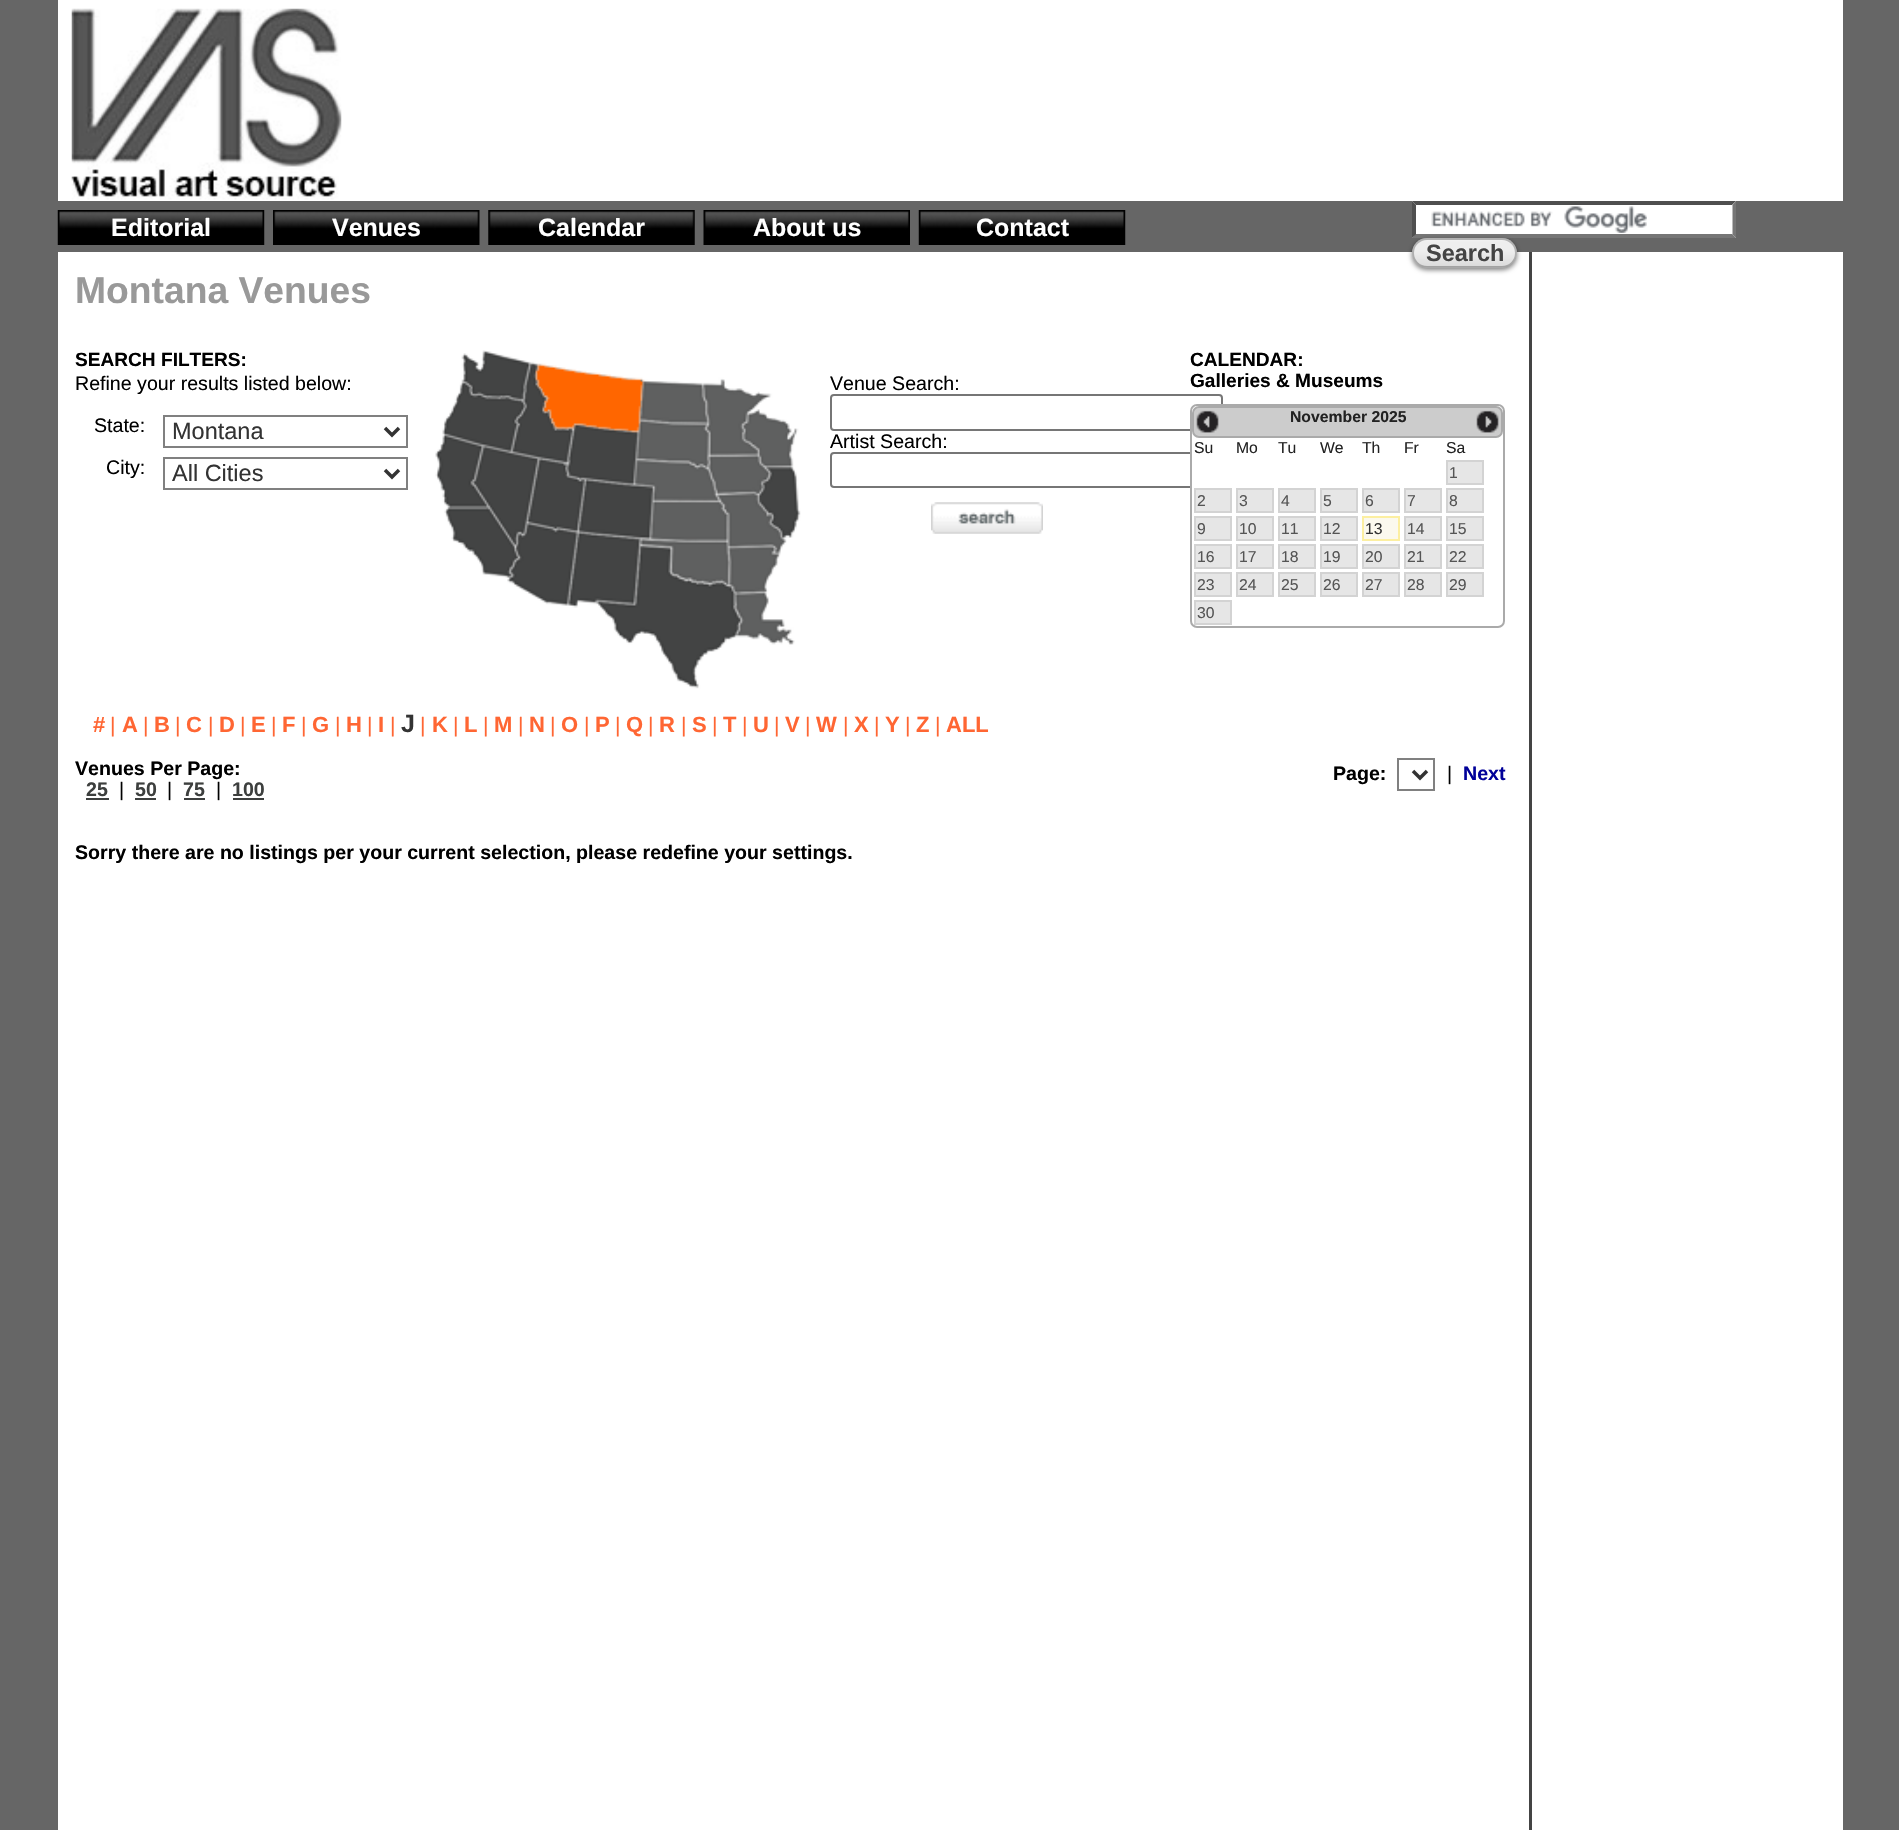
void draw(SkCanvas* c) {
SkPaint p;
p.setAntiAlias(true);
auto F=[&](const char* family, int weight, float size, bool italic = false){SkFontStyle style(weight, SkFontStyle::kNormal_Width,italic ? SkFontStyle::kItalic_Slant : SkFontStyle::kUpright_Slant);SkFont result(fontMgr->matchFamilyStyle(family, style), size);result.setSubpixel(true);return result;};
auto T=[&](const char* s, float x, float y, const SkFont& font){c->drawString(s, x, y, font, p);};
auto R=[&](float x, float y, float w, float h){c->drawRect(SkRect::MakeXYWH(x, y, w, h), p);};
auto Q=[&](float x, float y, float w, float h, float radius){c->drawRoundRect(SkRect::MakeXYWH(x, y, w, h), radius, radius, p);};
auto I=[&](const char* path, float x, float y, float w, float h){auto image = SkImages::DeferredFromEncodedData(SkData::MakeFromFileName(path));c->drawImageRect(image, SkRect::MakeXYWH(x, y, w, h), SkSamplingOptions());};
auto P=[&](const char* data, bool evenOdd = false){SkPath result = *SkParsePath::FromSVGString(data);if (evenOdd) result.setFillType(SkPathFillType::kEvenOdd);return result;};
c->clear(0xff666666);
p.setColor(0xffffffff);
R(58,252,1785,1578);
p.setColor(0xff444444);
R(1529,252,3,1578);
I("1.png",57,210,208,35);
auto f1 = F("Liberation Sans",700,25);
p.setColor(0xffffffff);
T("Editorial",111,236,f1);
I("2.png",273,210,207,35);
T("Venues",332,236,f1);
I("3.png",488,210,207,35);
T("Calendar",538,236,f1);
I("4.png",703,210,207,35);
T("About us",753,236,f1);
I("1.png",918,210,208,35);
T("Contact",976,236,f1);
auto f2 = F("Liberation Sans",700,37.25);
p.setColor(0xff999999);
T("Montana Venues",75,303,f2);
auto f3 = F("Liberation Sans",700,19.1);
p.setColor(0xff000000);
T("SEARCH FILTERS:",75,366,f3);
auto f4 = F("Liberation Sans",400,19.6);
T("Refine your results listed below:",75,390,f4);
T("State:",94,432,f4);
p.setStroke(true);
p.setStrokeWidth(2);
p.setColor(0xff808080);
c->drawRect(SkRect::MakeXYWH(164,416,243,31),p);
p.setStrokeWidth(3.5);
p.setColor(0xff333333);
c->drawPath(P("M385 428l7 7l7-7"),p);
auto f5 = F("Liberation Sans",400,23.5);
p.setStroke(false);
T("Montana",172,439,f5);
p.setColor(0xff000000);
T("City:",106,474,f4);
p.setStroke(true);
p.setStrokeWidth(2);
p.setColor(0xff808080);
c->drawRect(SkRect::MakeXYWH(164,458,243,31),p);
p.setStrokeWidth(3.5);
p.setColor(0xff333333);
c->drawPath(P("M385 470l7 7l7-7"),p);
p.setStroke(false);
T("All Cities",172,481,f5);
I("5.png",435,350,366,339);
p.setColor(0xff000000);
T("Venue Search:",830,390,f4);
p.setStroke(true);
p.setStrokeWidth(2);
p.setColor(0xff767676);
c->drawRoundRect(SkRect::MakeXYWH(831,395,391,35),3,3,p);
p.setStroke(false);
p.setColor(0xff000000);
T("Artist Search:",830,448,f4);
p.setStroke(true);
p.setColor(0xff767676);
c->drawRoundRect(SkRect::MakeXYWH(831,453,391,34),3,3,p);
I("6.png",931,502,112,32);
p.setStroke(false);
p.setColor(0xff000000);
T("CALENDAR:",1190,366,f3);
T("Galleries & Museums",1190,387,f3);
p.setColor(0xffffffff);
c->drawRoundRect(SkRect::MakeXYWH(1191,405,313,222),6,6,p);
p.setStroke(true);
p.setColor(0xffaaaaaa);
c->drawRoundRect(SkRect::MakeXYWH(1191,405,313,222),6,6,p);
p.setStroke(false);
p.setColor(0xffcccccc);
c->drawRoundRect(SkRect::MakeXYWH(1193,407,309,30),6,6,p);
p.setStroke(true);
p.setColor(0xffaaaaaa);
c->drawRoundRect(SkRect::MakeXYWH(1193,407,309,30),6,6,p);
I("7.png",1196,410,23,23);
auto f6 = F("Liberation Sans",700,15.75);
p.setStroke(false);
p.setColor(0xff222222);
T("November 2025",1290,422,f6);
I("8.png",1476,410,23,23);
auto f7 = F("Liberation Sans",400,15.75);
T("Su",1194,453,f7);
T("Mo",1236,453,f7);
T("Tu",1278,453,f7);
T("We",1320,453,f7);
T("Th",1362,453,f7);
T("Fr",1404,453,f7);
T("Sa",1446,453,f7);
p.setColor(0xffe6e6e6);
c->drawRect(SkRect::MakeXYWH(1447,461,36,23),p);
p.setStroke(true);
p.setColor(0xffd3d3d3);
c->drawRect(SkRect::MakeXYWH(1447,461,36,23),p);
p.setStroke(false);
p.setColor(0xff555555);
T("1",1449,478,f7);
p.setColor(0xffe6e6e6);
c->drawRect(SkRect::MakeXYWH(1195,489,36,23),p);
p.setStroke(true);
p.setColor(0xffd3d3d3);
c->drawRect(SkRect::MakeXYWH(1195,489,36,23),p);
p.setStroke(false);
p.setColor(0xff555555);
T("2",1197,506,f7);
p.setColor(0xffe6e6e6);
c->drawRect(SkRect::MakeXYWH(1237,489,36,23),p);
p.setStroke(true);
p.setColor(0xffd3d3d3);
c->drawRect(SkRect::MakeXYWH(1237,489,36,23),p);
p.setStroke(false);
p.setColor(0xff555555);
T("3",1239,506,f7);
p.setColor(0xffe6e6e6);
c->drawRect(SkRect::MakeXYWH(1279,489,36,23),p);
p.setStroke(true);
p.setColor(0xffd3d3d3);
c->drawRect(SkRect::MakeXYWH(1279,489,36,23),p);
p.setStroke(false);
p.setColor(0xff555555);
T("4",1281,506,f7);
p.setColor(0xffe6e6e6);
c->drawRect(SkRect::MakeXYWH(1321,489,36,23),p);
p.setStroke(true);
p.setColor(0xffd3d3d3);
c->drawRect(SkRect::MakeXYWH(1321,489,36,23),p);
p.setStroke(false);
p.setColor(0xff555555);
T("5",1323,506,f7);
p.setColor(0xffe6e6e6);
c->drawRect(SkRect::MakeXYWH(1363,489,36,23),p);
p.setStroke(true);
p.setColor(0xffd3d3d3);
c->drawRect(SkRect::MakeXYWH(1363,489,36,23),p);
p.setStroke(false);
p.setColor(0xff555555);
T("6",1365,506,f7);
p.setColor(0xffe6e6e6);
c->drawRect(SkRect::MakeXYWH(1405,489,36,23),p);
p.setStroke(true);
p.setColor(0xffd3d3d3);
c->drawRect(SkRect::MakeXYWH(1405,489,36,23),p);
p.setStroke(false);
p.setColor(0xff555555);
T("7",1407,506,f7);
p.setColor(0xffe6e6e6);
c->drawRect(SkRect::MakeXYWH(1447,489,36,23),p);
p.setStroke(true);
p.setColor(0xffd3d3d3);
c->drawRect(SkRect::MakeXYWH(1447,489,36,23),p);
p.setStroke(false);
p.setColor(0xff555555);
T("8",1449,506,f7);
p.setColor(0xffe6e6e6);
c->drawRect(SkRect::MakeXYWH(1195,517,36,23),p);
p.setStroke(true);
p.setColor(0xffd3d3d3);
c->drawRect(SkRect::MakeXYWH(1195,517,36,23),p);
p.setStroke(false);
p.setColor(0xff555555);
T("9",1197,534,f7);
p.setColor(0xffe6e6e6);
c->drawRect(SkRect::MakeXYWH(1237,517,36,23),p);
p.setStroke(true);
p.setColor(0xffd3d3d3);
c->drawRect(SkRect::MakeXYWH(1237,517,36,23),p);
p.setStroke(false);
p.setColor(0xff555555);
T("10",1239,534,f7);
p.setColor(0xffe6e6e6);
c->drawRect(SkRect::MakeXYWH(1279,517,36,23),p);
p.setStroke(true);
p.setColor(0xffd3d3d3);
c->drawRect(SkRect::MakeXYWH(1279,517,36,23),p);
p.setStroke(false);
p.setColor(0xff555555);
T("11",1281,534,f7);
p.setColor(0xffe6e6e6);
c->drawRect(SkRect::MakeXYWH(1321,517,36,23),p);
p.setStroke(true);
p.setColor(0xffd3d3d3);
c->drawRect(SkRect::MakeXYWH(1321,517,36,23),p);
p.setStroke(false);
p.setColor(0xff555555);
T("12",1323,534,f7);
p.setColor(0xfffbf9ee);
c->drawRect(SkRect::MakeXYWH(1363,517,36,23),p);
p.setStroke(true);
p.setColor(0xfffcefa1);
c->drawRect(SkRect::MakeXYWH(1363,517,36,23),p);
p.setStroke(false);
p.setColor(0xff333333);
T("13",1365,534,f7);
p.setColor(0xffe6e6e6);
c->drawRect(SkRect::MakeXYWH(1405,517,36,23),p);
p.setStroke(true);
p.setColor(0xffd3d3d3);
c->drawRect(SkRect::MakeXYWH(1405,517,36,23),p);
p.setStroke(false);
p.setColor(0xff555555);
T("14",1407,534,f7);
p.setColor(0xffe6e6e6);
c->drawRect(SkRect::MakeXYWH(1447,517,36,23),p);
p.setStroke(true);
p.setColor(0xffd3d3d3);
c->drawRect(SkRect::MakeXYWH(1447,517,36,23),p);
p.setStroke(false);
p.setColor(0xff555555);
T("15",1449,534,f7);
p.setColor(0xffe6e6e6);
c->drawRect(SkRect::MakeXYWH(1195,545,36,23),p);
p.setStroke(true);
p.setColor(0xffd3d3d3);
c->drawRect(SkRect::MakeXYWH(1195,545,36,23),p);
p.setStroke(false);
p.setColor(0xff555555);
T("16",1197,562,f7);
p.setColor(0xffe6e6e6);
c->drawRect(SkRect::MakeXYWH(1237,545,36,23),p);
p.setStroke(true);
p.setColor(0xffd3d3d3);
c->drawRect(SkRect::MakeXYWH(1237,545,36,23),p);
p.setStroke(false);
p.setColor(0xff555555);
T("17",1239,562,f7);
p.setColor(0xffe6e6e6);
c->drawRect(SkRect::MakeXYWH(1279,545,36,23),p);
p.setStroke(true);
p.setColor(0xffd3d3d3);
c->drawRect(SkRect::MakeXYWH(1279,545,36,23),p);
p.setStroke(false);
p.setColor(0xff555555);
T("18",1281,562,f7);
p.setColor(0xffe6e6e6);
c->drawRect(SkRect::MakeXYWH(1321,545,36,23),p);
p.setStroke(true);
p.setColor(0xffd3d3d3);
c->drawRect(SkRect::MakeXYWH(1321,545,36,23),p);
p.setStroke(false);
p.setColor(0xff555555);
T("19",1323,562,f7);
p.setColor(0xffe6e6e6);
c->drawRect(SkRect::MakeXYWH(1363,545,36,23),p);
p.setStroke(true);
p.setColor(0xffd3d3d3);
c->drawRect(SkRect::MakeXYWH(1363,545,36,23),p);
p.setStroke(false);
p.setColor(0xff555555);
T("20",1365,562,f7);
p.setColor(0xffe6e6e6);
c->drawRect(SkRect::MakeXYWH(1405,545,36,23),p);
p.setStroke(true);
p.setColor(0xffd3d3d3);
c->drawRect(SkRect::MakeXYWH(1405,545,36,23),p);
p.setStroke(false);
p.setColor(0xff555555);
T("21",1407,562,f7);
p.setColor(0xffe6e6e6);
c->drawRect(SkRect::MakeXYWH(1447,545,36,23),p);
p.setStroke(true);
p.setColor(0xffd3d3d3);
c->drawRect(SkRect::MakeXYWH(1447,545,36,23),p);
p.setStroke(false);
p.setColor(0xff555555);
T("22",1449,562,f7);
p.setColor(0xffe6e6e6);
c->drawRect(SkRect::MakeXYWH(1195,573,36,23),p);
p.setStroke(true);
p.setColor(0xffd3d3d3);
c->drawRect(SkRect::MakeXYWH(1195,573,36,23),p);
p.setStroke(false);
p.setColor(0xff555555);
T("23",1197,590,f7);
p.setColor(0xffe6e6e6);
c->drawRect(SkRect::MakeXYWH(1237,573,36,23),p);
p.setStroke(true);
p.setColor(0xffd3d3d3);
c->drawRect(SkRect::MakeXYWH(1237,573,36,23),p);
p.setStroke(false);
p.setColor(0xff555555);
T("24",1239,590,f7);
p.setColor(0xffe6e6e6);
c->drawRect(SkRect::MakeXYWH(1279,573,36,23),p);
p.setStroke(true);
p.setColor(0xffd3d3d3);
c->drawRect(SkRect::MakeXYWH(1279,573,36,23),p);
p.setStroke(false);
p.setColor(0xff555555);
T("25",1281,590,f7);
p.setColor(0xffe6e6e6);
c->drawRect(SkRect::MakeXYWH(1321,573,36,23),p);
p.setStroke(true);
p.setColor(0xffd3d3d3);
c->drawRect(SkRect::MakeXYWH(1321,573,36,23),p);
p.setStroke(false);
p.setColor(0xff555555);
T("26",1323,590,f7);
p.setColor(0xffe6e6e6);
c->drawRect(SkRect::MakeXYWH(1363,573,36,23),p);
p.setStroke(true);
p.setColor(0xffd3d3d3);
c->drawRect(SkRect::MakeXYWH(1363,573,36,23),p);
p.setStroke(false);
p.setColor(0xff555555);
T("27",1365,590,f7);
p.setColor(0xffe6e6e6);
c->drawRect(SkRect::MakeXYWH(1405,573,36,23),p);
p.setStroke(true);
p.setColor(0xffd3d3d3);
c->drawRect(SkRect::MakeXYWH(1405,573,36,23),p);
p.setStroke(false);
p.setColor(0xff555555);
T("28",1407,590,f7);
p.setColor(0xffe6e6e6);
c->drawRect(SkRect::MakeXYWH(1447,573,36,23),p);
p.setStroke(true);
p.setColor(0xffd3d3d3);
c->drawRect(SkRect::MakeXYWH(1447,573,36,23),p);
p.setStroke(false);
p.setColor(0xff555555);
T("29",1449,590,f7);
p.setColor(0xffe6e6e6);
c->drawRect(SkRect::MakeXYWH(1195,601,36,23),p);
p.setStroke(true);
p.setColor(0xffd3d3d3);
c->drawRect(SkRect::MakeXYWH(1195,601,36,23),p);
p.setStroke(false);
p.setColor(0xff555555);
T("30",1197,618,f7);
auto f8 = F("Liberation Sans",700,22);
p.setColor(0xffff6633);
T("#",93,732,f8);
auto f9 = F("Liberation Sans",400,21);
T("|",110,732,f9);
T("A",122,732,f8);
T("|",143,732,f9);
T("B",154,732,f8);
T("|",175,732,f9);
T("C",186,732,f8);
T("|",208,732,f9);
T("D",219,732,f8);
T("|",240,732,f9);
T("E",251,732,f8);
T("|",271,732,f9);
T("F",282,732,f8);
T("|",301,732,f9);
T("G",312,732,f8);
T("|",335,732,f9);
T("H",346,732,f8);
T("|",367,732,f9);
T("I",378,732,f8);
T("|",390,732,f9);
p.setColor(0xff333333);
T("J",401,732,f1);
p.setColor(0xffff6633);
T("|",420,732,f9);
T("K",432,732,f8);
T("|",453,732,f9);
T("L",464,732,f8);
T("|",483,732,f9);
T("M",494,732,f8);
T("|",518,732,f9);
T("N",529,732,f8);
T("|",550,732,f9);
T("O",561,732,f8);
T("|",584,732,f9);
T("P",595,732,f8);
T("|",615,732,f9);
T("Q",626,732,f8);
T("|",648,732,f9);
T("R",659,732,f8);
T("|",681,732,f9);
T("S",692,732,f8);
T("|",712,732,f9);
T("T",723,732,f8);
T("|",742,732,f9);
T("U",753,732,f8);
T("|",774,732,f9);
T("V",785,732,f8);
T("|",805,732,f9);
T("W",816,732,f8);
T("|",843,732,f9);
T("X",854,732,f8);
T("|",874,732,f9);
T("Y",885,732,f8);
T("|",905,732,f9);
T("Z",916,732,f8);
T("|",935,732,f9);
T("ALL",946,732,f8);
auto f10 = F("Liberation Sans",700,19.6);
p.setColor(0xff000000);
T("Venues Per Page:",75,775,f10);
p.setColor(0xff3d3f3e);
T("25",86,796,f10);
R(86,798,23,2);
p.setColor(0xff000000);
T("|",119,796,f4);
p.setColor(0xff3d3f3e);
T("50",135,796,f10);
R(135,798,21,2);
p.setColor(0xff000000);
T("|",167,796,f4);
p.setColor(0xff3d3f3e);
T("75",183,796,f10);
R(184,798,21,2);
p.setColor(0xff000000);
T("|",216,796,f4);
p.setColor(0xff3d3f3e);
T("100",232,796,f10);
R(233,798,31,2);
p.setColor(0xff000000);
T("Page:",1333,780,f10);
p.setStroke(true);
p.setColor(0xff808080);
c->drawRect(SkRect::MakeXYWH(1398,759,36,31),p);
p.setStrokeWidth(3.5);
p.setColor(0xff333333);
c->drawPath(P("M1413 771l7 7l7-7"),p);
p.setStroke(false);
p.setColor(0xff000000);
T("|",1447,780,f4);
p.setColor(0xff000099);
T("Next",1463,780,f10);
p.setColor(0xff000000);
T("Sorry there are no listings per your current selection, please redefine your settings.",75,859,f10);
p.setColor(0xffffffff);
R(58,0,1785,201);
I("9.png",71,8,271,192);
R(1412,201,324,37);
I("10.png",1431,206,216,27);
p.setColor(0xff4f4f4f);
c->drawPath(P("M1412 201h324l-4 4h-316z"),p);
p.setColor(0xff767676);
c->drawPath(P("M1736 201v37l-3.5-3.5v-29.5z"),p);
c->drawPath(P("M1736 238h-324l4-4h316z"),p);
p.setColor(0xff4f4f4f);
c->drawPath(P("M1412 238v-37l4 4v29.5z"),p);
p.setColor(0x80000000);
p.setMaskFilter(SkMaskFilter::MakeBlur(kNormal_SkBlurStyle, 2.5));
c->drawRoundRect(SkRect::MakeXYWH(1412,240,105,30),15,15,p);
p.setMaskFilter(nullptr);
p.setColor(0xffeeeeee);
Q(1412,238,105,30,15);
I("11.png",1413,240,103,28);
p.setStroke(true);
p.setStrokeWidth(2);
p.setColor(0x40000000);
c->drawRoundRect(SkRect::MakeXYWH(1413,239,103,28),14,14,p);
auto f11 = F("Liberation Sans",700,23.5);
p.setStroke(false);
p.setColor(0xff444444);
T("Search",1426,261,f11);
}
